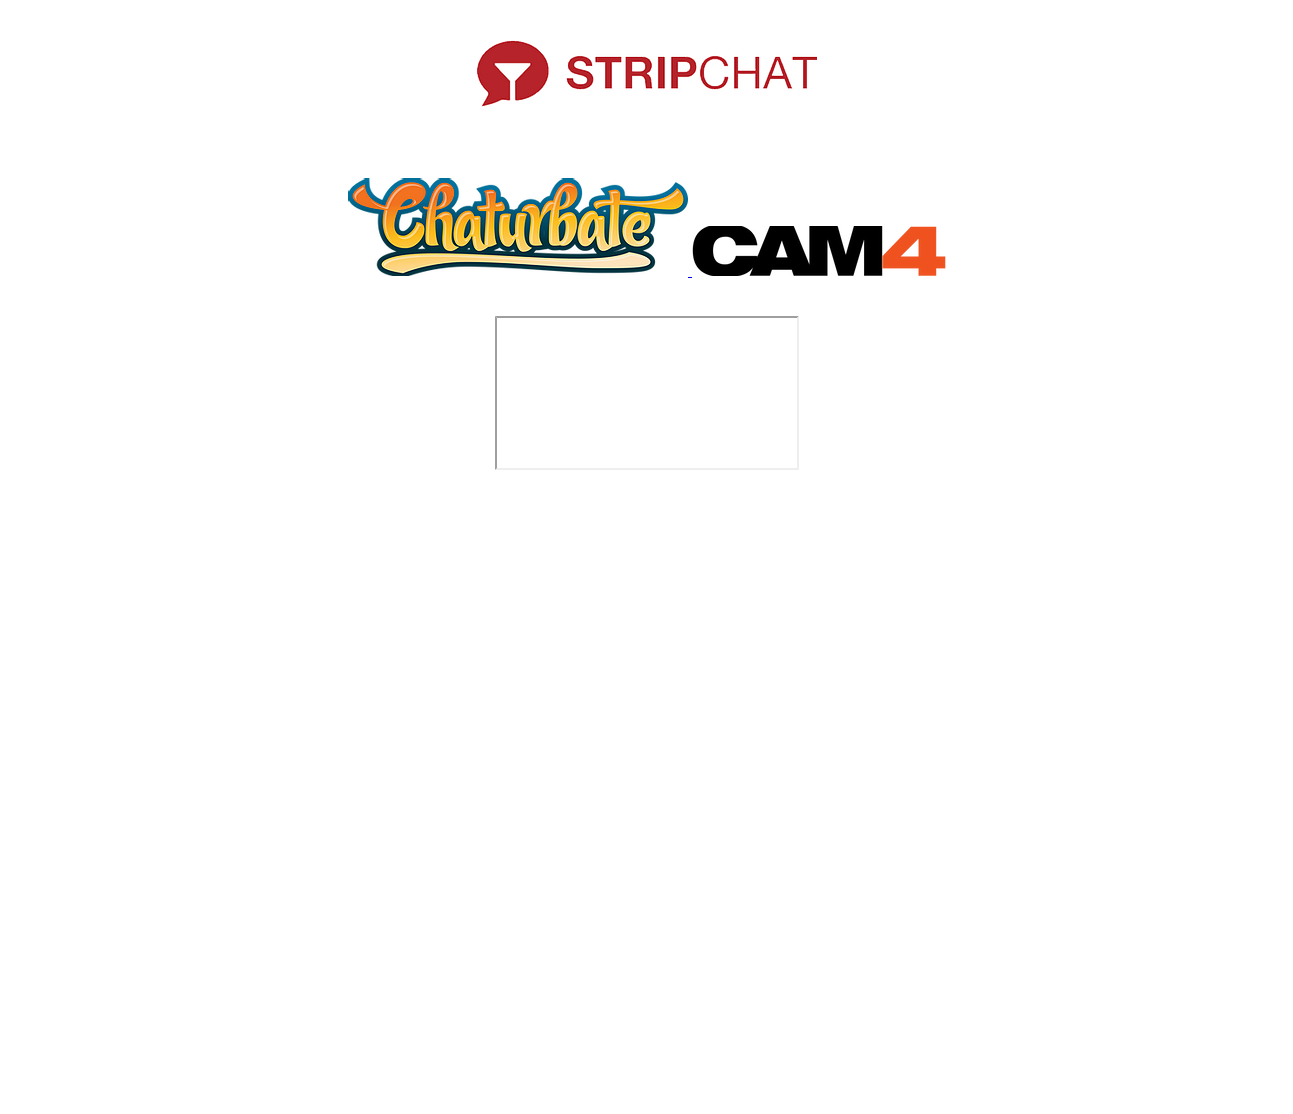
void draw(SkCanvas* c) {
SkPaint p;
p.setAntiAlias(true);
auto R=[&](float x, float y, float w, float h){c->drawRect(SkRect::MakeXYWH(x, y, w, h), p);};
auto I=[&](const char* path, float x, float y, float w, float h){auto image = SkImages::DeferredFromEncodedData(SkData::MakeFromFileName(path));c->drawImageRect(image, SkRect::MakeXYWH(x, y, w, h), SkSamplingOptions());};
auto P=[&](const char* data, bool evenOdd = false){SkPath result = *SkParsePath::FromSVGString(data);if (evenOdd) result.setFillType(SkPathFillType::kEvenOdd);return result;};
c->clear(0xffffffff);
I("1.png",477,40,340,67);
I("2.png",348,178,340,98);
I("3.png",692,226,254,50);
p.setColor(0xff0000ee);
R(688,277,4,1);
p.setColor(0xff9f9f9f);
c->drawPath(P("M495 316h304l-2 2h-300z"),p);
p.setColor(0xffeeeeee);
c->drawPath(P("M799 316v154l-2-2v-150z"),p);
c->drawPath(P("M799 470h-304l2-2h300z"),p);
p.setColor(0xff9f9f9f);
c->drawPath(P("M495 470v-154l2 2v150z"),p);
}
